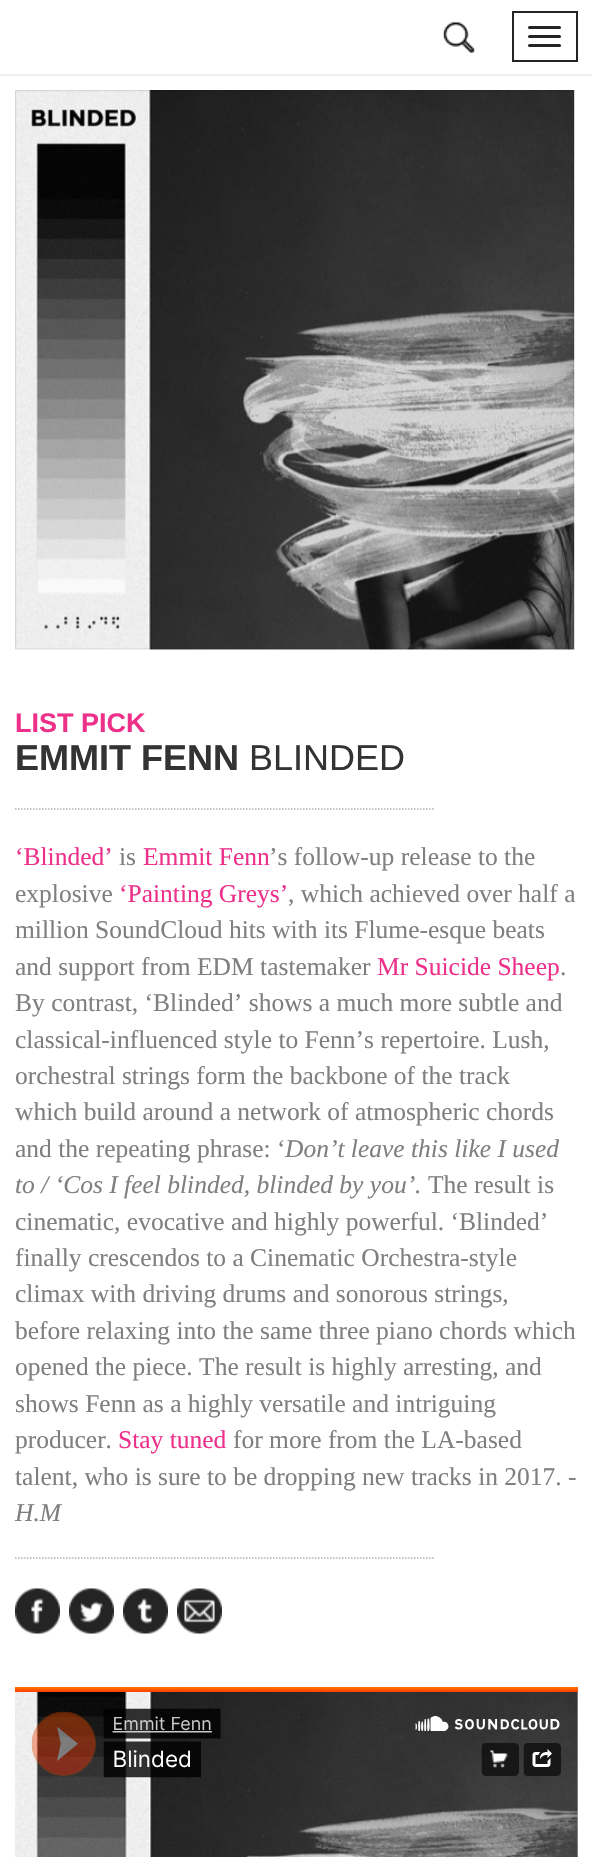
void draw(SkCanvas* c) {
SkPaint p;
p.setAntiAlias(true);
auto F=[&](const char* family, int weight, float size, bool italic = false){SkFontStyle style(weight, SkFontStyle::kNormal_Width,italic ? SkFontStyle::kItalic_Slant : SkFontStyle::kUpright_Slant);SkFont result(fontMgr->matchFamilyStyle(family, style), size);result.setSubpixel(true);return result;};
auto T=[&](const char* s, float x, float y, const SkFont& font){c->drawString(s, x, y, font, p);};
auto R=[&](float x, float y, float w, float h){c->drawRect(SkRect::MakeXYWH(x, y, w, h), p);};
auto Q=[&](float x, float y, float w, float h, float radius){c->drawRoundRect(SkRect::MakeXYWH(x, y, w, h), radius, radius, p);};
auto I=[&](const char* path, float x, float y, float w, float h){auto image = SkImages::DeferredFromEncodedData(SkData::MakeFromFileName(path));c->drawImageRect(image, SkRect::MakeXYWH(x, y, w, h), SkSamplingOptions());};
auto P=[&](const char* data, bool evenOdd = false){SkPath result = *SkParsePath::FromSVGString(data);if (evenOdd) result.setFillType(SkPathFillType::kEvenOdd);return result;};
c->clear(0xffffffff);
p.setColor(0xffeeeeee);
R(0,74,592,2);
I("1.png",442,22,33,31);
p.setStroke(true);
p.setStrokeWidth(2);
p.setColor(0xff242424);
c->drawRect(SkRect::MakeXYWH(513,12,64,49),p);
p.setStroke(false);
Q(528,26,33,3,1.5);
Q(528,35,33,3,1.5);
Q(528,44,33,3,1.5);
I("2.png",15,90,560,560);
auto f1 = F("Liberation Sans",700,27);
p.setColor(0xffed308a);
T("LIST PICK",15,732,f1);
auto f2 = F("Liberation Sans",700,36);
p.setColor(0xff333333);
T("EMMIT FENN",15,770,f2);
auto f3 = F("Liberation Sans",400,36);
T("BLINDED",249,770,f3);
p.setStroke(true);
p.setStrokeWidth(1.5);
p.setColor(0xffb2b2b2);
p.setPathEffect(SkDashPathEffect::Make({{1.5f,1.5f}}, 0));
c->drawPath(P("M15 809h420"),p);
p.setPathEffect(nullptr);
auto f4 = F("Liberation Serif",400,25.5);
p.setStroke(false);
p.setColor(0xffed308a);
T("‘Blinded’",15,865,f4);
p.setColor(0xff7f7f7f);
T("is",119,865,f4);
p.setColor(0xffed308a);
T("Emmit Fenn",143,865,f4);
p.setColor(0xff7f7f7f);
T("’s follow-up release to the",269,865,f4);
T("explosive",15,902,f4);
p.setColor(0xffed308a);
T("‘Painting Greys’",119,902,f4);
p.setColor(0xff7f7f7f);
T(", which achieved over half a",288,902,f4);
T("million SoundCloud hits with its Flume-esque beats",15,938,f4);
T("and support from EDM tastemaker",15,975,f4);
p.setColor(0xffed308a);
T("Mr Suicide Sheep",377,975,f4);
p.setColor(0xff7f7f7f);
T(".",560,975,f4);
T("By contrast, ‘Blinded’ shows a much more subtle and",15,1011,f4);
T("classical-influenced style to Fenn’s repertoire. Lush,",15,1048,f4);
T("orchestral strings form the backbone of the track",15,1084,f4);
T("which build around a network of atmospheric chords",15,1120,f4);
T("and the repeating phrase: ‘",15,1157,f4);
auto f5 = F("Liberation Serif",400,25.5,true);
T("Don’t leave this like I used",285,1157,f5);
T("to / ‘Cos I feel blinded, blinded by you’.",15,1193,f5);
T("The result is",428,1193,f4);
T("cinematic, evocative and highly powerful. ‘Blinded’",15,1230,f4);
T("finally crescendos to a Cinematic Orchestra-style",15,1266,f4);
T("climax with driving drums and sonorous strings,",15,1302,f4);
T("before relaxing into the same three piano chords which",15,1339,f4);
T("opened the piece. The result is highly arresting, and",15,1375,f4);
T("shows Fenn as a highly versatile and intriguing",15,1412,f4);
T("producer.",15,1448,f4);
p.setColor(0xffed308a);
T("Stay tuned",118,1448,f4);
p.setColor(0xff7f7f7f);
T("for more from the LA-based",233,1448,f4);
T("talent, who is sure to be dropping new tracks in 2017.",15,1485,f4);
T("-",568,1485,f5);
T("H.M",15,1521,f5);
p.setStroke(true);
p.setColor(0xffb2b2b2);
p.setPathEffect(SkDashPathEffect::Make({{1.5f,1.5f}}, 0));
c->drawPath(P("M15 1558h420"),p);
p.setPathEffect(nullptr);
I("3.png",15,1588,45,46);
I("4.png",69,1588,45,46);
I("5.png",123,1588,45,46);
I("6.png",177,1588,45,46);
I("7.png",15,1687,563,170);
}
